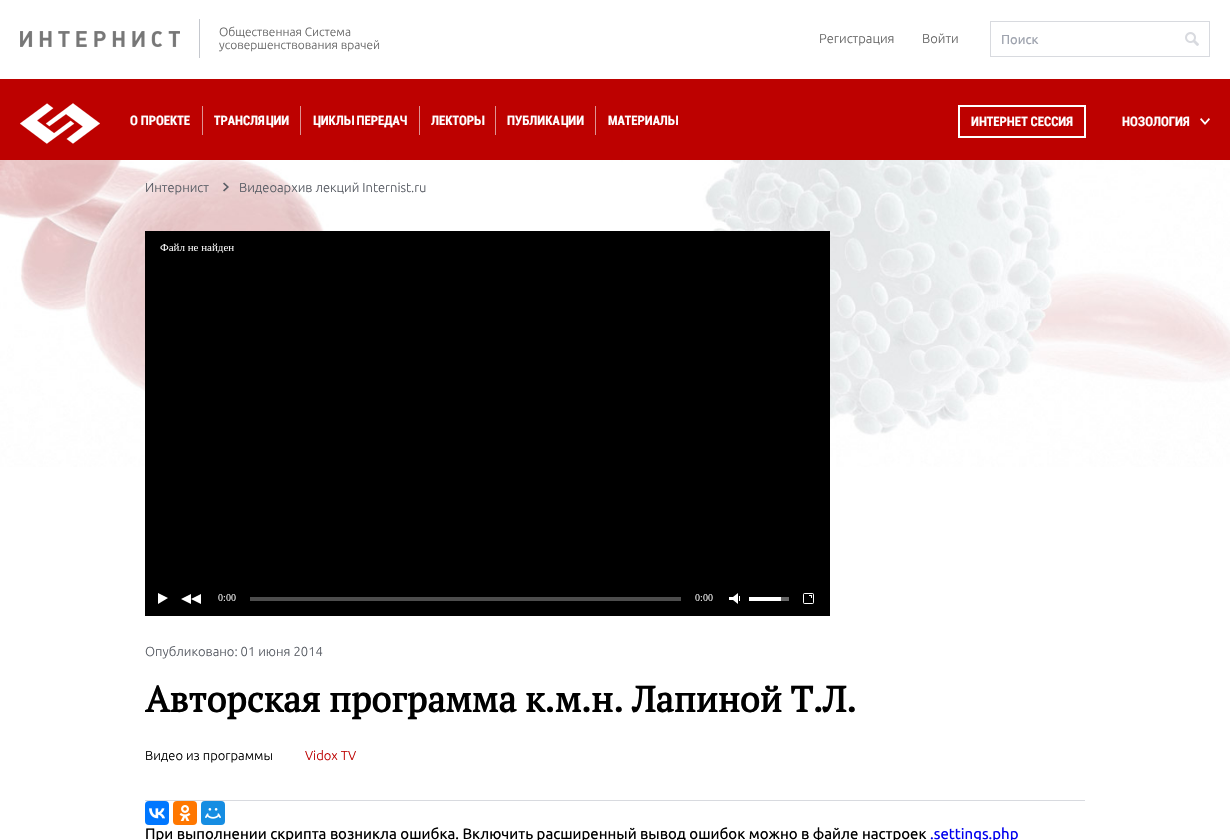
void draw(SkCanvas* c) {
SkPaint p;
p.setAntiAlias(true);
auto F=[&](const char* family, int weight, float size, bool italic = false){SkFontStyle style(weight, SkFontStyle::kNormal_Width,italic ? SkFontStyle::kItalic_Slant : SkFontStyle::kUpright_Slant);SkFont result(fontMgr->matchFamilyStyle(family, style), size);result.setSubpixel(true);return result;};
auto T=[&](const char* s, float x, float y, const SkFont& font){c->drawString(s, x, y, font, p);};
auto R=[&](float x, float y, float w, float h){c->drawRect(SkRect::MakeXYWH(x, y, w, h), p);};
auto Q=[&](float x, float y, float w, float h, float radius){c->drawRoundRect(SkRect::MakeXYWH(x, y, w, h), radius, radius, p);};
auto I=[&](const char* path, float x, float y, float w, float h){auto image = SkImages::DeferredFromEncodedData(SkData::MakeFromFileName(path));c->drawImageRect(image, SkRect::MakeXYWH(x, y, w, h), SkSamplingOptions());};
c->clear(0xffffffff);
I("1.png",0,160,1230,307);
I("2.png",20,31,160,16);
p.setColor(0xffc5c8ce);
R(199,19,1,39);
auto f1 = F("Ubuntu",300,12);
p.setColor(0xff666666);
T("Общественная Система",219,36,f1);
T("усовершенствования врачей",219,49,f1);
auto f2 = F("Ubuntu",300,13);
T("Регистрация",819,43,f2);
T("Войти",922,43,f2);
p.setStroke(true);
p.setStrokeWidth(1);
p.setColor(0xffd8dadf);
c->drawRect(SkRect::MakeXYWH(990.5,21.5,219,35),p);
auto f3 = F("Ubuntu",400,13);
p.setStroke(false);
p.setColor(0xff9ea3ae);
T("Поиск",1001,44,f3);
I("3.png",1185,32,14,14);
p.setColor(0xffbd0100);
R(0,79,1230,81);
I("4.png",20,103,80,41);
auto f4 = F("Roboto",700,13);
p.setColor(0xffffffff);
T("О ПРОЕКТЕ",130,125,f4);
p.setColor(0xffde9392);
R(202,106,1,29);
p.setColor(0xffffffff);
T("ТРАНСЛЯЦИИ",214,125,f4);
p.setColor(0xffde9392);
R(300,106,1,29);
p.setColor(0xffffffff);
T("ЦИКЛЫ ПЕРЕДАЧ",312,125,f4);
p.setColor(0xffde9392);
R(419,106,1,29);
p.setColor(0xffffffff);
T("ЛЕКТОРЫ",431,125,f4);
p.setColor(0xffde9392);
R(495,106,1,29);
p.setColor(0xffffffff);
T("ПУБЛИКАЦИИ",507,125,f4);
p.setColor(0xffde9392);
R(595,106,1,29);
p.setColor(0xffffffff);
T("МАТЕРИАЛЫ",608,125,f4);
p.setStroke(true);
p.setStrokeWidth(2);
c->drawRect(SkRect::MakeXYWH(959,106,126,31),p);
p.setStroke(false);
T("ИНТЕРНЕТ СЕССИЯ",971,126,f4);
T("НОЗОЛОГИЯ",1122,126,f4);
I("5.png",1200,118,10,7);
p.setColor(0xff585c64);
T("Интернист",145,192,f2);
I("6.png",223,182,6,10);
T("Видеоархив лекций Internist.ru",239,192,f2);
p.setColor(0xff000000);
R(145,231,685,385);
I("7.png",158,243,656,361);
p.setColor(0xff585c64);
T("Опубликовано: 01 июня 2014",145,656,f2);
auto f5 = F("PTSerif",700,36);
p.setColor(0xff000000);
T("Авторская программа к.м.н. Лапиной Т.Л.",145,712,f5);
p.setColor(0xffd8dadf);
R(145,800,940,1);
p.setColor(0xff000000);
T("Видео из программы",145,760,f2);
p.setColor(0xffbd0100);
T("Vidox TV",305,760,f2);
p.setColor(0xff0077ff);
Q(145,801,24,24,4);
I("8.png",149,808,16,11);
p.setColor(0xffff7700);
Q(173,801,24,24,4);
I("9.png",179,805,12,16);
p.setColor(0xff168de2);
Q(201,801,24,24,4);
I("10.png",205,808,16,11);
auto f6 = F("Ubuntu",400,15);
p.setColor(0xff000000);
T("При выполнении скрипта возникла ошибка. Включить расширенный вывод ошибок можно в файле настроек",145,839,f6);
p.setColor(0xff0000ee);
T(".settings.php",930,839,f6);
}
